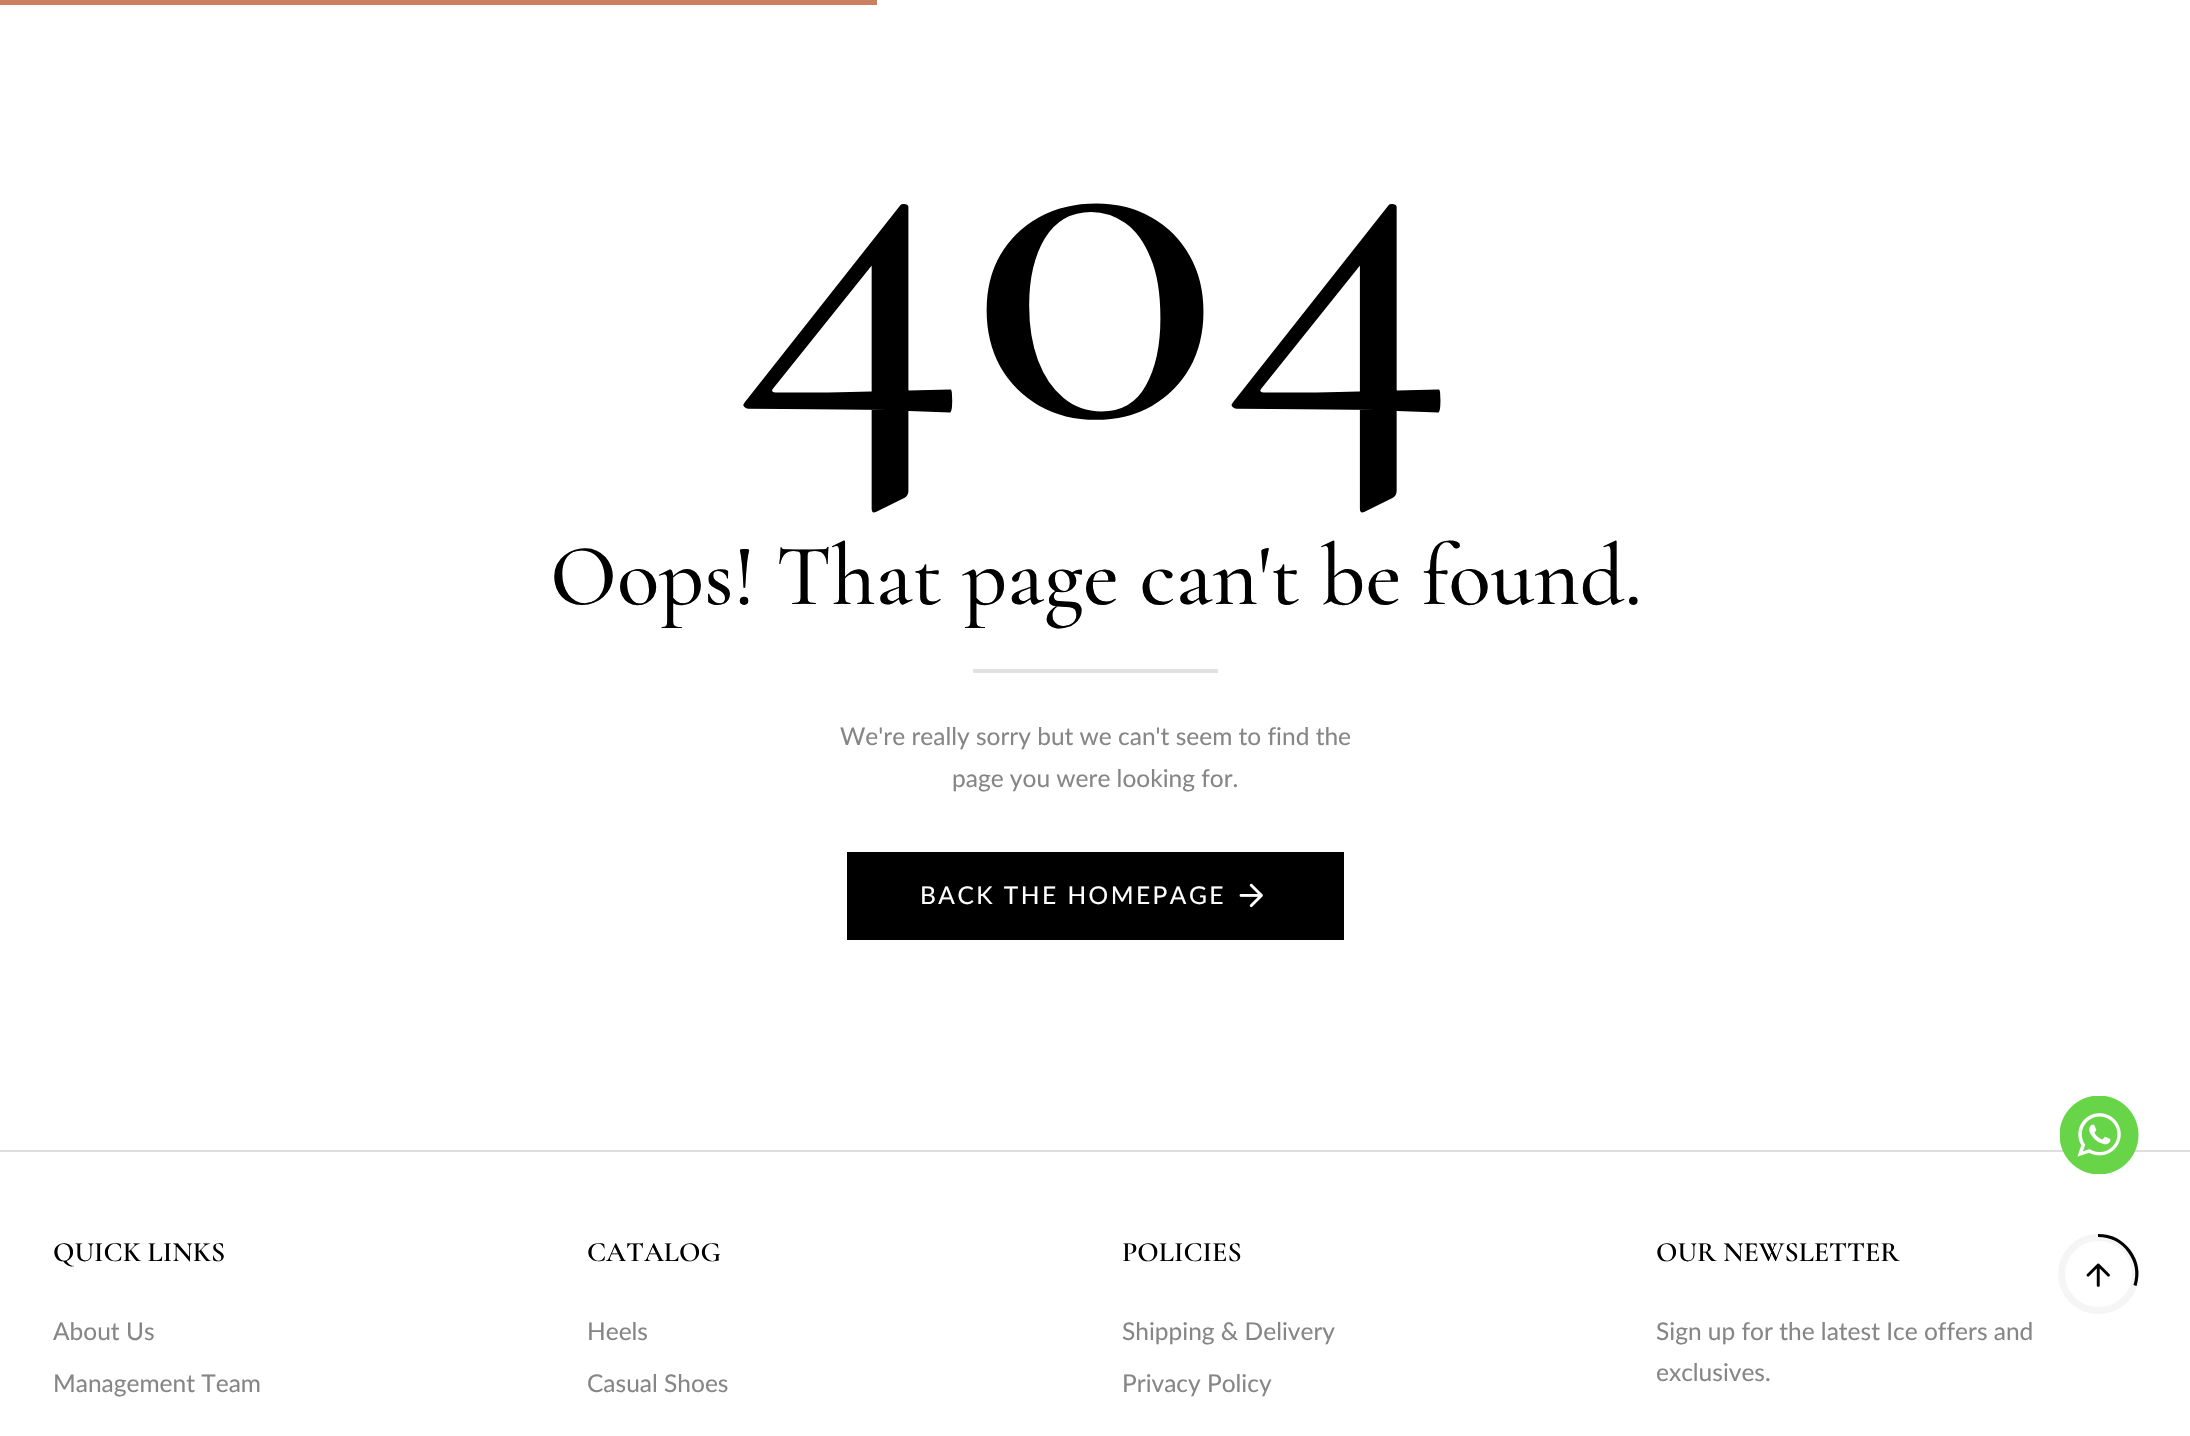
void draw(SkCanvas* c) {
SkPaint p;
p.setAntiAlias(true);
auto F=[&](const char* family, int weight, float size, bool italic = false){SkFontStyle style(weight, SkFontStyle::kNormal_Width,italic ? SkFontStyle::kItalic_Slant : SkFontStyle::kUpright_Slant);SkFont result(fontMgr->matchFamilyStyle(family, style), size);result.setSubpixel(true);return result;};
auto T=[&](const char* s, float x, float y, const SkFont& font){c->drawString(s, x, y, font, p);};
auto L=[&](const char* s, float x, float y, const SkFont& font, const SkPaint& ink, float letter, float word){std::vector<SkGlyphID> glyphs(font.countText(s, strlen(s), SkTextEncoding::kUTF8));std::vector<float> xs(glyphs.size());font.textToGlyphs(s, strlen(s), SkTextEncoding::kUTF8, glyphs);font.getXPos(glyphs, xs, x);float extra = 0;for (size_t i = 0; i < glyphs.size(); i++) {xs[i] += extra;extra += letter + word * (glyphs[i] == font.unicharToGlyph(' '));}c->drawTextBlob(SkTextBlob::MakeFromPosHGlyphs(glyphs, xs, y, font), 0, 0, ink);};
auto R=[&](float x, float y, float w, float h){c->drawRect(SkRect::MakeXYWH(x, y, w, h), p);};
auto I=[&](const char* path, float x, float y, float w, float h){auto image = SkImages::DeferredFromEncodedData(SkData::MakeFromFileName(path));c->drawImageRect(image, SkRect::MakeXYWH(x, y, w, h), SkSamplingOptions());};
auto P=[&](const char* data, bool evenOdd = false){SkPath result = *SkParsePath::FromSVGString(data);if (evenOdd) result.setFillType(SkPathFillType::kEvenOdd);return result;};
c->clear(0xffffffff);
p.setColor(0xffcb8161);
R(0,0,877,5);
auto f1 = F("Cormorant Garamond",500,525);
p.setColor(0xff000000);
T("404",732,413,f1);
auto f2 = F("Cormorant Garamond",500,87.5);
T("Oops! That page can't be found.",550,604,f2);
p.setColor(0xffe1e1e1);
R(973,669,245,4);
auto f3 = F("Lato",400,24.5);
p.setColor(0xff868686);
T("We're really sorry but we can't seem to find the",840,745,f3);
T("page you were looking for.",952,787,f3);
p.setColor(0xff000000);
R(847,852,497,88);
p.setColor(0xffffffff);
L("BACK THE HOMEPAGE",920,904,f3,p,2.5,0);
I("1.png",1239,883,24,25);
p.setColor(0xffdedede);
R(0,1150,2190,2);
I("2.png",2060,1096,79,78);
auto f4 = F("Cormorant Garamond",600,28);
p.setColor(0xff000000);
T("QUICK LINKS",53,1261,f4);
p.setColor(0xff868686);
T("About Us",53,1340,f3);
T("Management Team",53,1392,f3);
p.setColor(0xff000000);
T("CATALOG",587,1261,f4);
p.setColor(0xff868686);
T("Heels",587,1340,f3);
T("Casual Shoes",587,1392,f3);
p.setColor(0xff000000);
T("POLICIES",1122,1261,f4);
p.setColor(0xff868686);
T("Shipping & Delivery",1122,1340,f3);
T("Privacy Policy",1122,1392,f3);
p.setColor(0xff000000);
T("OUR NEWSLETTER",1656,1261,f4);
p.setColor(0xff868686);
T("Sign up for the latest Ice offers and",1656,1340,f3);
T("exclusives.",1656,1381,f3);
p.setStroke(true);
p.setStrokeWidth(7);
p.setColor(0xfff5f5f5);
c->drawRoundRect(SkRect::MakeXYWH(2061.5,1237.5,74,73),36.5,36.5,p);
I("3.png",2086,1263,24,24);
p.setStrokeWidth(3.2);
p.setColor(0xff000000);
c->drawPath(P("M2098 1235.5c26.5 0 44.5 25.5 37 50"),p);
}
